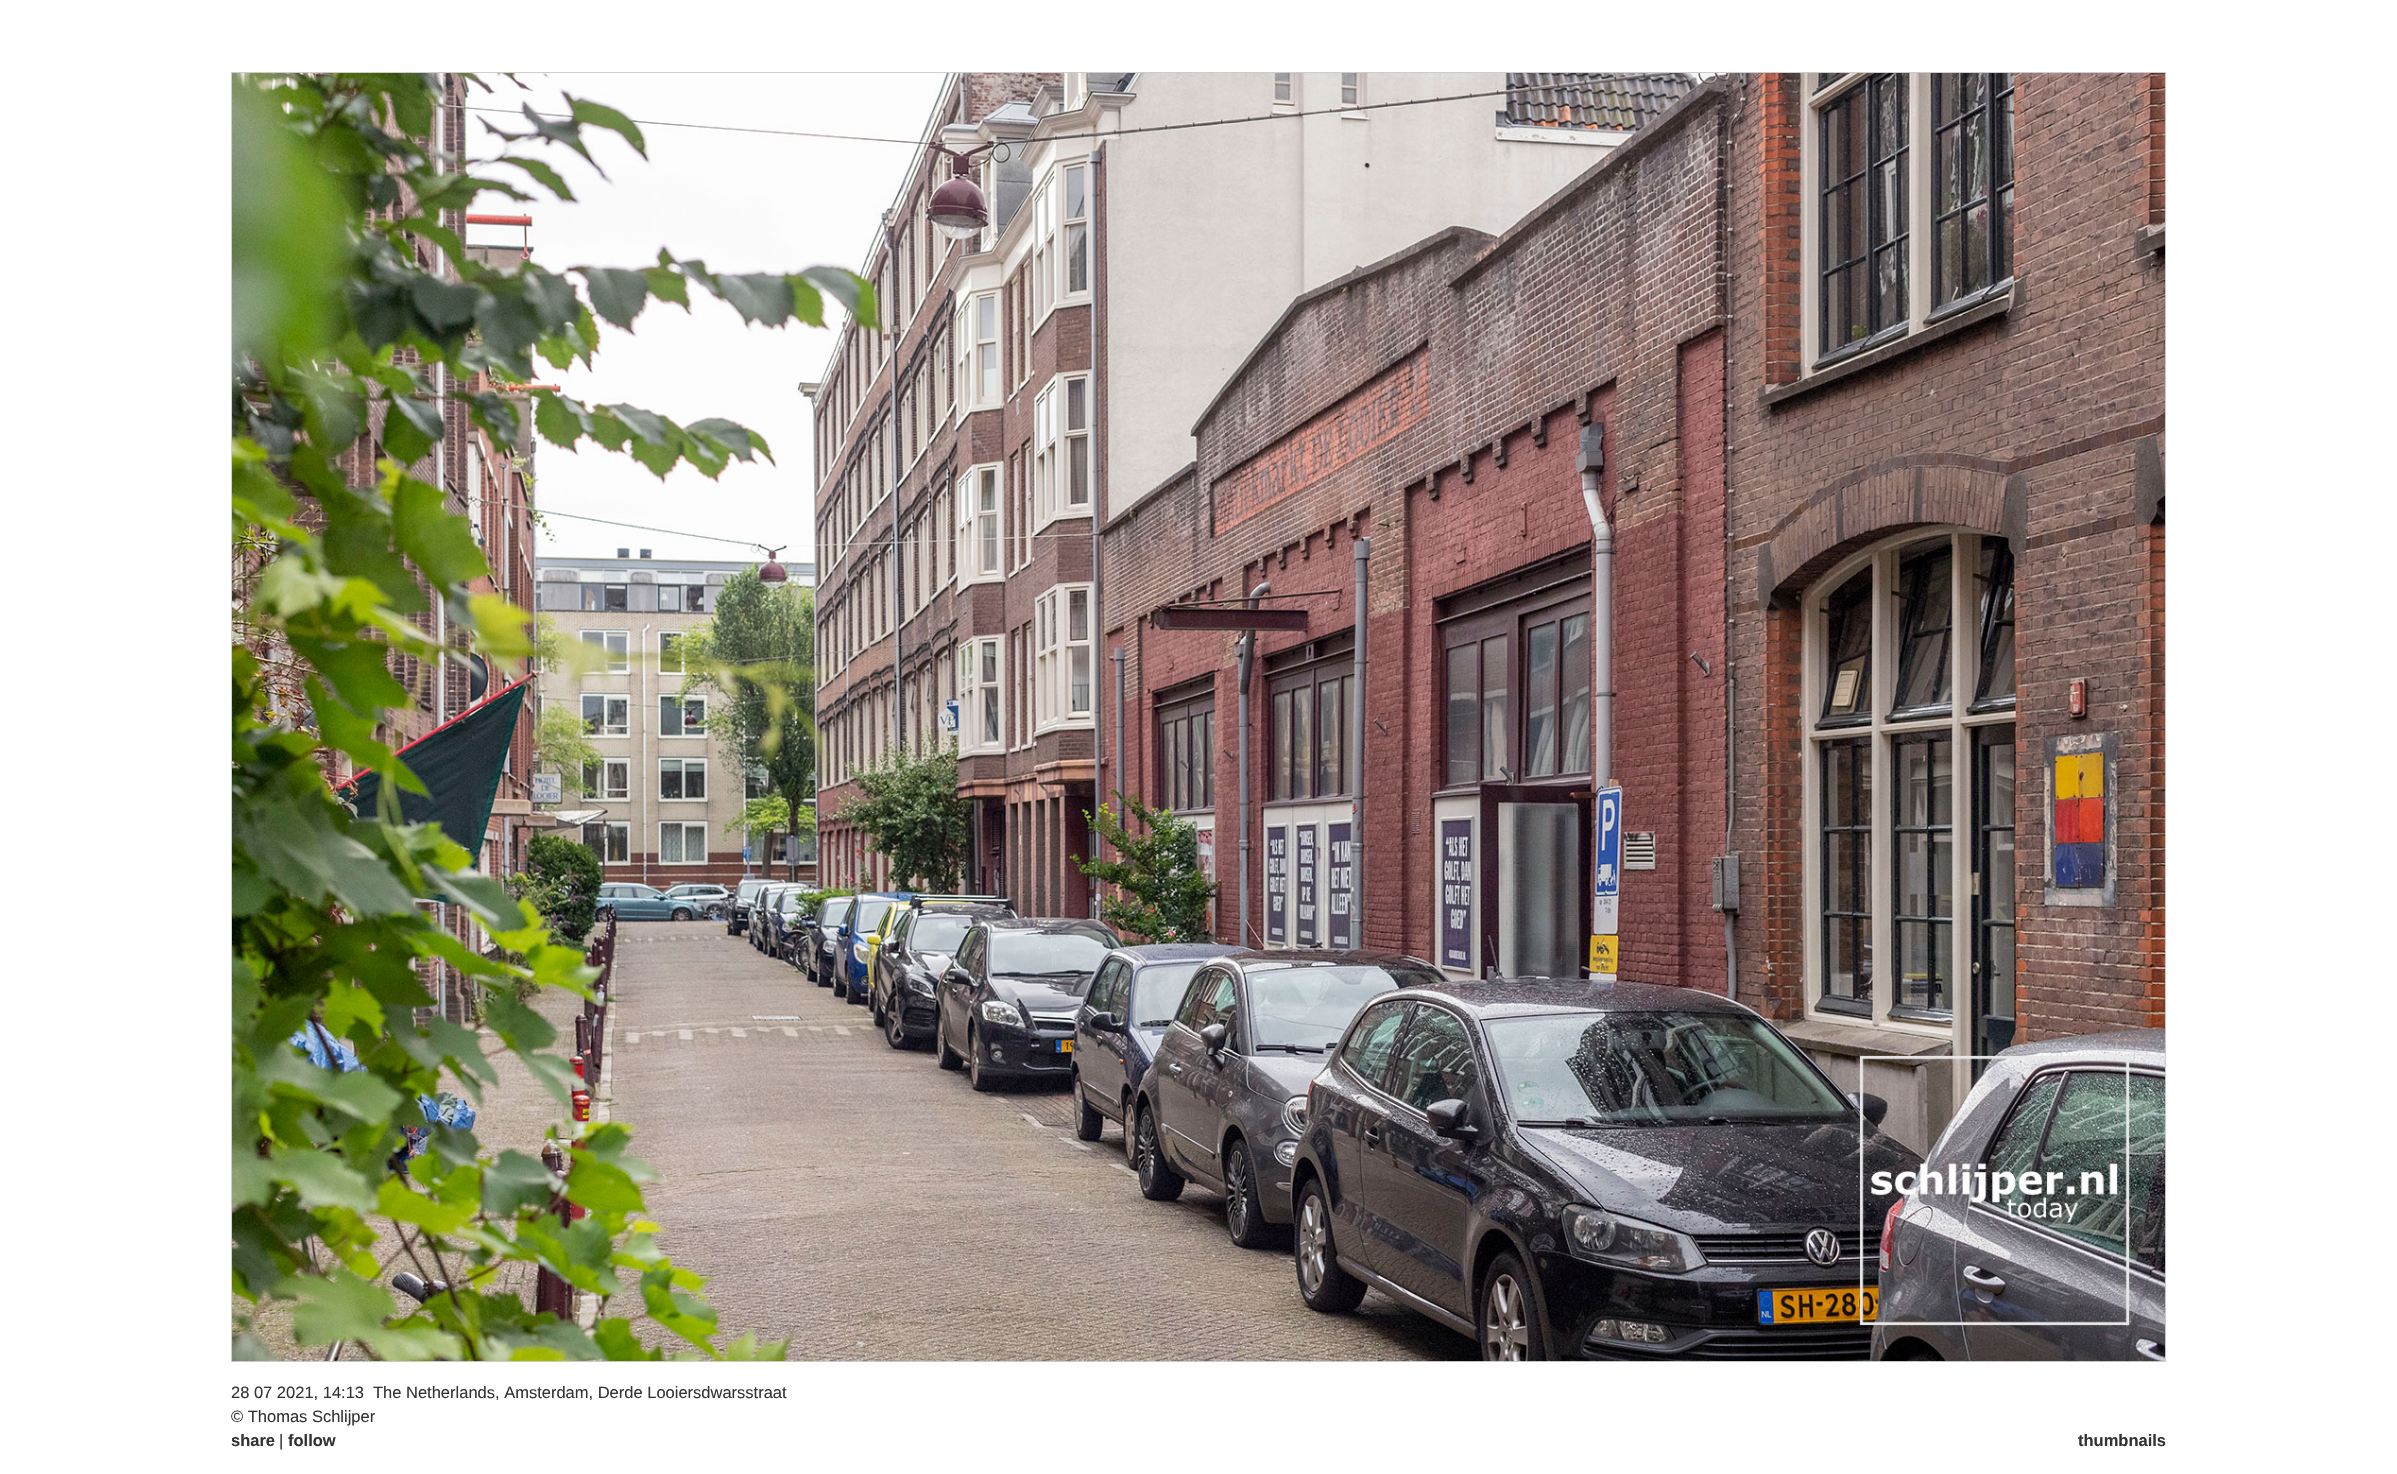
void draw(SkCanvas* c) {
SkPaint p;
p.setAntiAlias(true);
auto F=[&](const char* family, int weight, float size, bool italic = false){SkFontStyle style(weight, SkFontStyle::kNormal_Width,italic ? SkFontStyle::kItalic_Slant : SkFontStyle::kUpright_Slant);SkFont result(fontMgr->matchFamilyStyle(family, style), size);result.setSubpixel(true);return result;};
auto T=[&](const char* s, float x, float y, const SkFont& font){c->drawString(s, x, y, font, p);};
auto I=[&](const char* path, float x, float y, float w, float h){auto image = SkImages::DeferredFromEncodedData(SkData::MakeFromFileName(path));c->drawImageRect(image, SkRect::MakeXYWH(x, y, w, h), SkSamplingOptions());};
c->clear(0xffffffff);
I("1.png",231,72,1935,1290);
auto f1 = F("Liberation Sans",400,16.5);
p.setColor(0xff333333);
T("28 07 2021, 14:13",231,1398,f1);
T("The Netherlands, Amsterdam, Derde Looiersdwarsstraat",373,1398,f1);
T("© Thomas Schlijper",231,1422,f1);
auto f2 = F("Liberation Sans",700,16.5);
T("share",231,1446,f2);
T("|",279,1446,f1);
T("follow",288,1446,f2);
T("thumbnails",2078,1446,f2);
}
